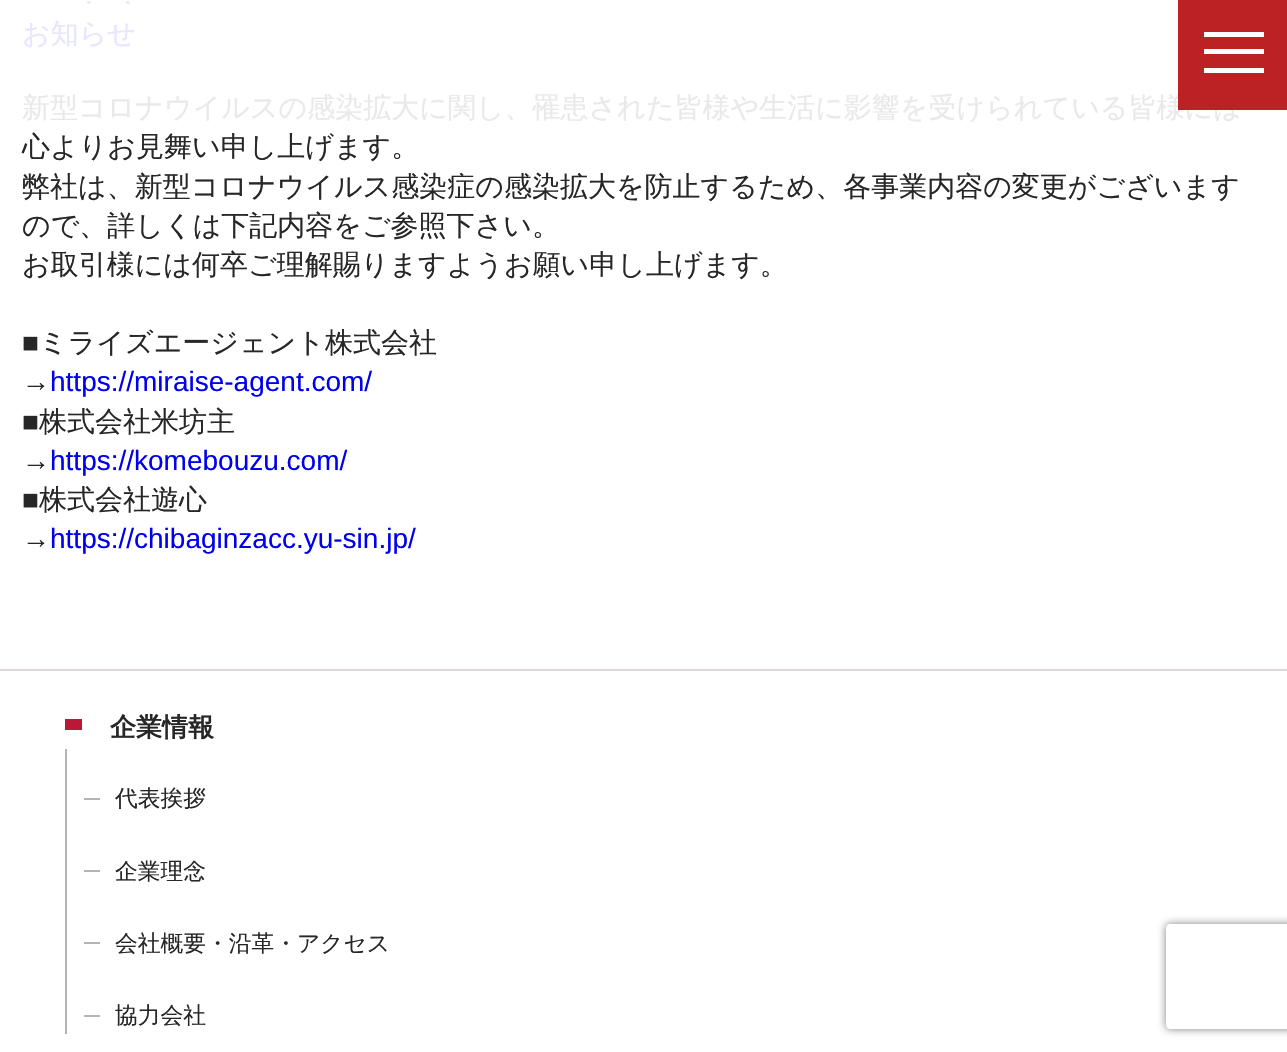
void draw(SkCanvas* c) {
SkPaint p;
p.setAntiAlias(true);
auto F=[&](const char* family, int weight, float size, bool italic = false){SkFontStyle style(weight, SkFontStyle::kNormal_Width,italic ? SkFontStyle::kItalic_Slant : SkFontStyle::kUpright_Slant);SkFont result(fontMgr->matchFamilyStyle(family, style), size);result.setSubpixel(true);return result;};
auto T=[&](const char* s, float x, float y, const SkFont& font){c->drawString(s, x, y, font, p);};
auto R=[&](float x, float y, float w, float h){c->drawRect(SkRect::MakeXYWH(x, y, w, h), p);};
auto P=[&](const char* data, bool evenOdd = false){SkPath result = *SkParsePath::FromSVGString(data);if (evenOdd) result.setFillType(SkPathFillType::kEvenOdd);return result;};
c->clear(0xffffffff);
auto f1 = F("WenQuanYi Zen Hei",500,28);
p.setColor(0xffe9e9e9);
T("新型コロナウイルスの感染拡大に関し、罹患された皆様や生活に影響を受けられている皆様には",22,117,f1);
p.setColor(0xffbc2124);
R(1178,0,109,110);
p.setColor(0xffffffff);
R(1204,32,60,5);
R(1204,49,60,5);
R(1204,68,60,5);
auto f2 = F("Liberation Sans",400,28);
p.setColor(0xffe9e9e9);
T(".",85,4,f2);
T(".",124,4,f2);
p.setColor(0xffe6e6fd);
T("お知らせ",22,43,f1);
p.setColor(0xff272727);
T("心よりお見舞い申し上げます。",22,156,f1);
T("弊社は、新型コロナウイルス感染症の感染拡大を防止するため、各事業内容の変更がございます",22,196,f1);
T("ので、詳しくは下記内容をご参照下さい。",22,235,f1);
T("お取引様には何卒ご理解賜りますようお願い申し上げます。",22,274,f1);
T("■",22,352,f2);
T("ミライズエージェント株式会社",39,352,f1);
T("→",22,391,f2);
p.setColor(0xff0000ee);
T("https://miraise-agent.com/",50,391,f2);
p.setColor(0xff272727);
T("■",22,431,f2);
T("株式会社米坊主",39,431,f1);
T("→",22,470,f2);
p.setColor(0xff0000ee);
T("https://komebouzu.com/",50,470,f2);
p.setColor(0xff272727);
T("■",22,509,f2);
T("株式会社遊心",39,509,f1);
T("→",22,548,f2);
p.setColor(0xff0000ee);
T("https://chibaginzacc.yu-sin.jp/",50,548,f2);
p.setColor(0xffe0d9d9);
R(0,669,1287,2);
p.setColor(0xffba1837);
R(65,719,17,11);
auto f3 = F("WenQuanYi Zen Hei",700,26);
p.setColor(0xff272727);
T("企業情報",110,736,f3);
p.setColor(0xffb8b3b3);
R(65,749,2,285);
R(84,798,16,2);
auto f4 = F("WenQuanYi Zen Hei",500,22.75);
p.setColor(0xff272727);
T("代表挨拶",115,806,f4);
p.setColor(0xffb8b3b3);
R(84,870,16,2);
p.setColor(0xff272727);
T("企業理念",115,879,f4);
p.setColor(0xffb8b3b3);
R(84,942,16,2);
p.setColor(0xff272727);
T("会社概要・沿革・アクセス",115,951,f4);
p.setColor(0xffb8b3b3);
R(84,1015,16,2);
p.setColor(0xff272727);
T("協力会社",115,1023,f4);
c->save();
c->clipPath(P("M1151 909h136v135h-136zm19 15h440c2 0 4 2 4 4v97c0 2-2 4-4 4h-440c-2 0-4-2-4-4v-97c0-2 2-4 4-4z",true),true);
p.setColor(0xff808080);
p.setMaskFilter(SkMaskFilter::MakeBlur(kNormal_SkBlurStyle, 4.5));
c->drawRoundRect(SkRect::MakeXYWH(1166,924,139,105),4,4,p);
p.setMaskFilter(nullptr);
c->restore();
}
